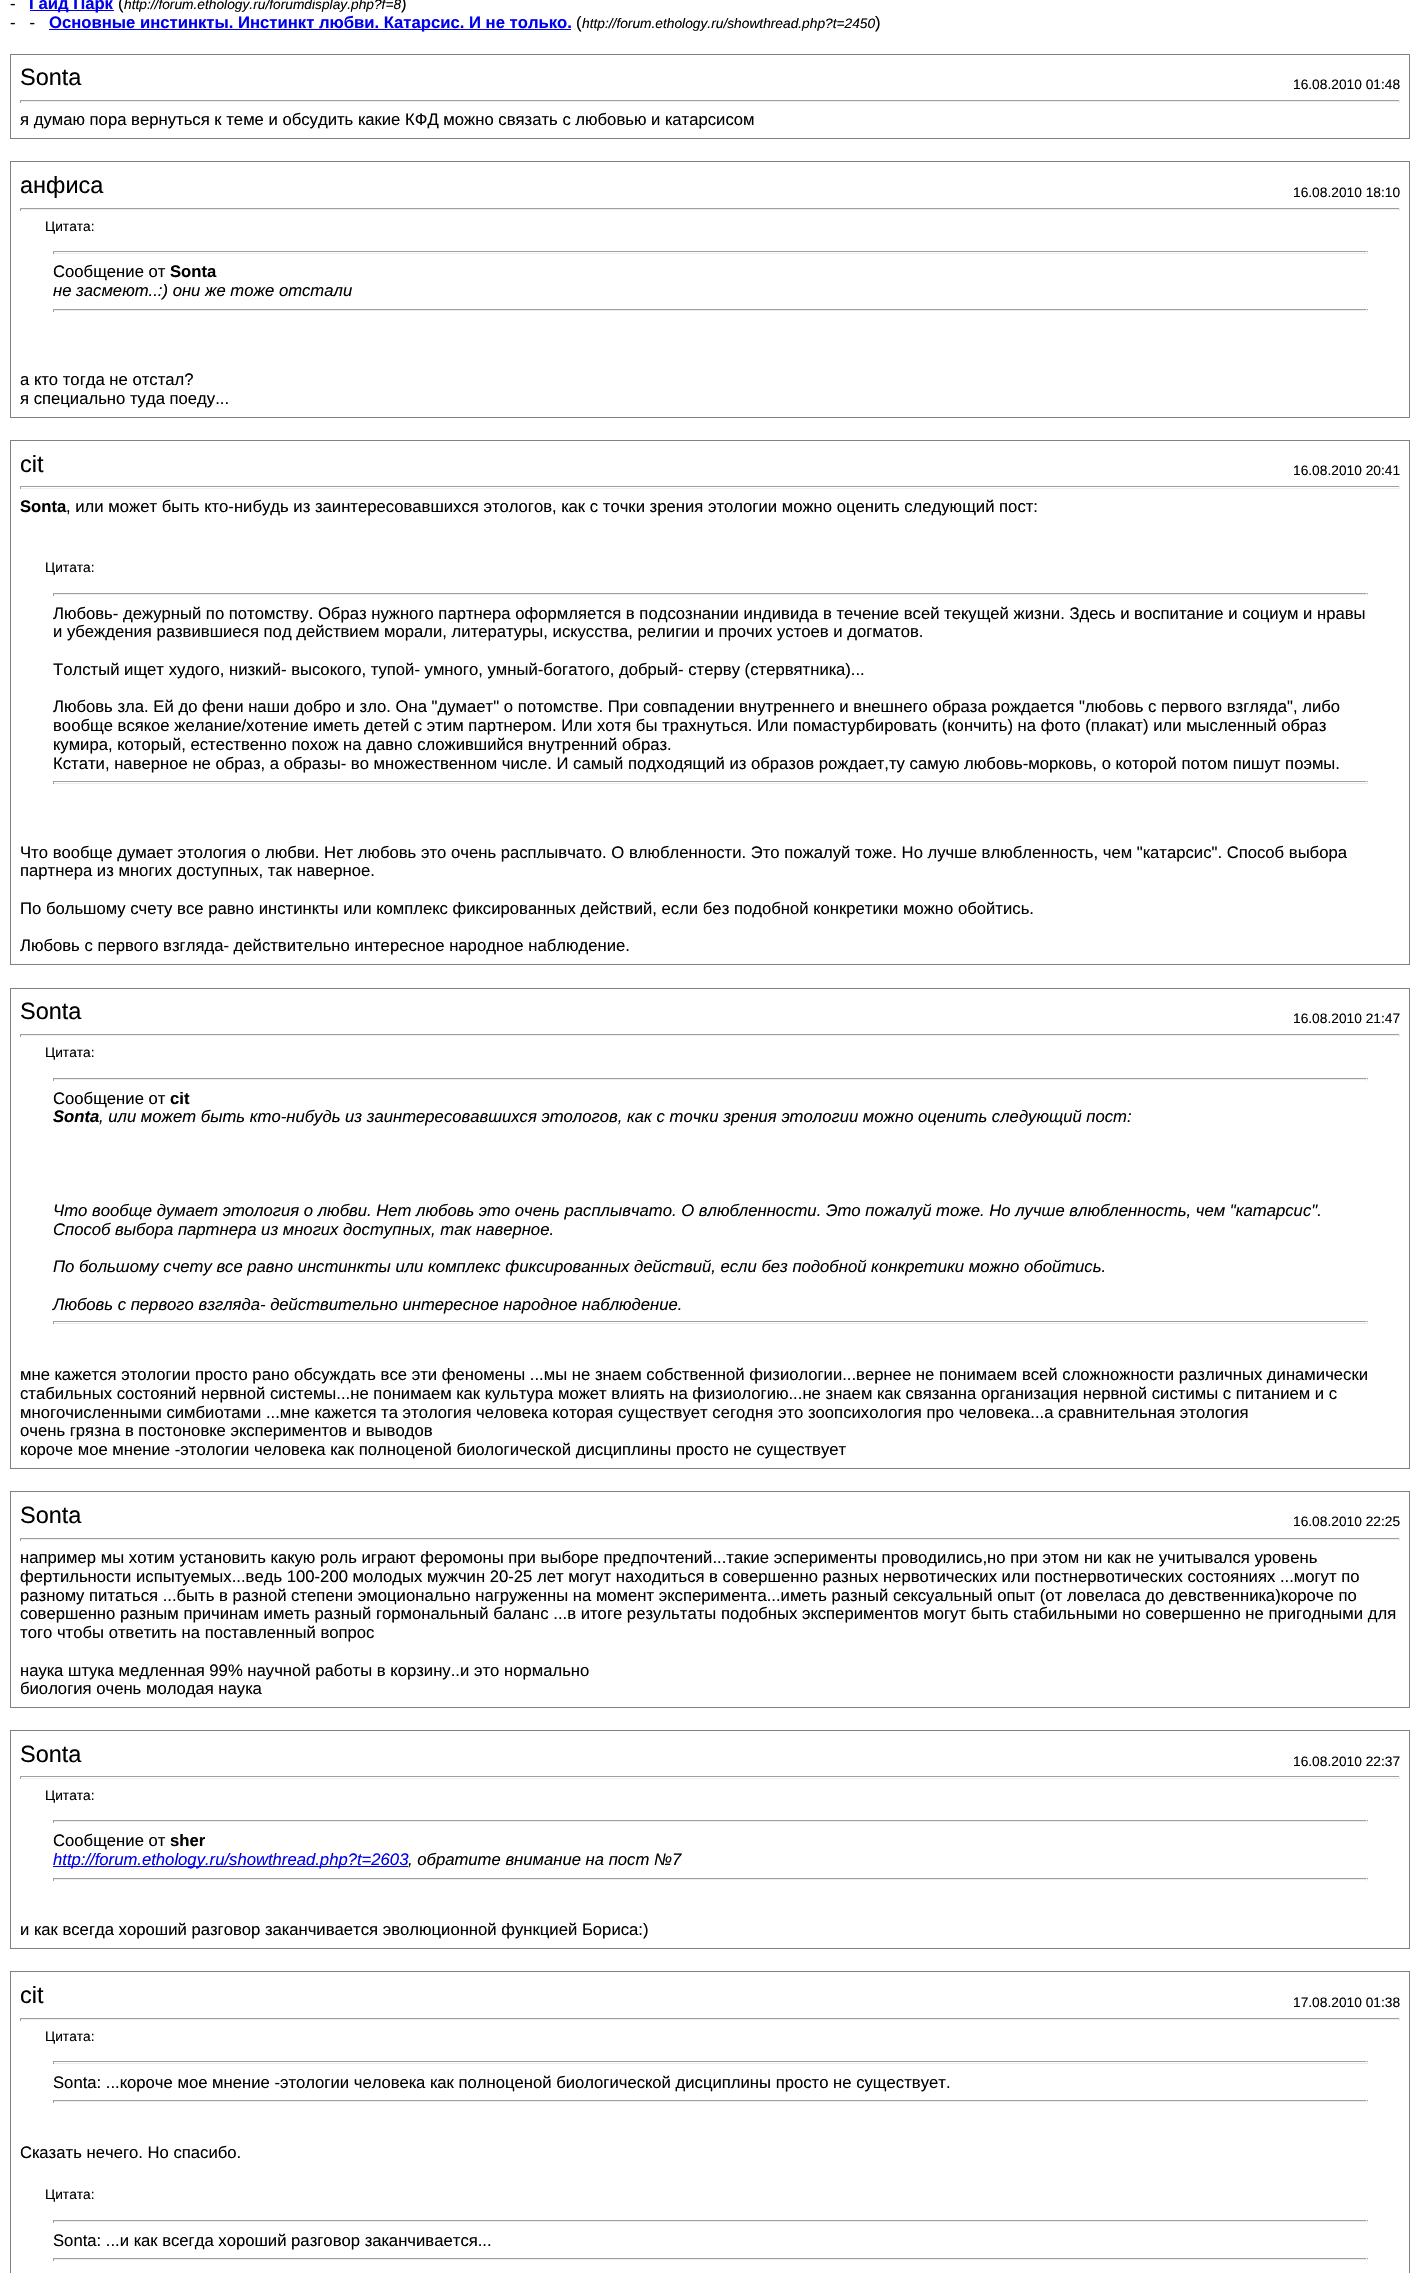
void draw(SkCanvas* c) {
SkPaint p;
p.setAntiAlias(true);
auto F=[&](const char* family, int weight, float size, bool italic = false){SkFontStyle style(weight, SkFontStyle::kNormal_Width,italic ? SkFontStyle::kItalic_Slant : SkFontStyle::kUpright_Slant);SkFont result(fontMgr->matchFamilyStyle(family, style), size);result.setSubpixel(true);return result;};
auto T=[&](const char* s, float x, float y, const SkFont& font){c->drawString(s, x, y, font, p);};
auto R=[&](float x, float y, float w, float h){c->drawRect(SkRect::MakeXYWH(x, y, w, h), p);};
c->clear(0xffffffff);
auto f1 = F("Liberation Sans",400,16.67);
p.setColor(0xff000000);
T("-",10,9,f1);
p.setColor(0xff0000ee);
R(30,10,84,1);
auto f2 = F("Liberation Sans",700,16.67);
T("Гайд Парк",29,9,f2);
p.setColor(0xff000000);
T("(",118,9,f1);
auto f3 = F("Liberation Sans",400,13.75,true);
T("http://forum.ethology.ru/forumdisplay.php?f=8",124,9,f3);
T(")",401,9,f1);
T("-   -",10,28,f1);
p.setColor(0xff0000ee);
R(49,29,522,1);
T("Основные инстинкты. Инстинкт любви. Катарсис. И не только.",49,28,f2);
p.setColor(0xff000000);
T("(",576,28,f1);
T("http://forum.ethology.ru/showthread.php?t=2450",582,28,f3);
T(")",875,28,f1);
p.setStroke(true);
p.setStrokeWidth(1);
p.setColor(0xff808080);
c->drawRect(SkRect::MakeXYWH(10.5,54.5,1399,84),p);
auto f4 = F("Liberation Sans",400,23.5);
p.setStroke(false);
p.setColor(0xff000000);
T("Sonta",20,85,f4);
auto f5 = F("Liberation Sans",400,13.75);
T("16.08.2010 01:48",1293,89,f5);
p.setColor(0xff9f9f9f);
R(20,100,1380,1);
p.setColor(0xffeeeeee);
R(1399,100,1,3);
R(20,101,1380,1);
p.setColor(0xff9f9f9f);
R(20,100,1,3);
p.setColor(0xff000000);
T("я думаю пора вернуться к теме и обсудить какие КФД можно связать с любовью и катарсисом",20,125,f1);
p.setStroke(true);
p.setColor(0xff808080);
c->drawRect(SkRect::MakeXYWH(10.5,161.5,1399,256),p);
p.setStroke(false);
p.setColor(0xff000000);
T("анфиса",20,193,f4);
T("16.08.2010 18:10",1293,197,f5);
p.setColor(0xff9f9f9f);
R(20,208,1380,1);
p.setColor(0xffeeeeee);
R(1399,208,1,3);
R(20,209,1380,1);
p.setColor(0xff9f9f9f);
R(20,208,1,3);
p.setColor(0xff000000);
T("Цитата:",45,231,f5);
p.setColor(0xff9f9f9f);
R(53,251,1315,1);
p.setColor(0xffeeeeee);
R(1366,251,1,3);
R(53,253,1315,1);
p.setColor(0xff9f9f9f);
R(53,251,1,3);
p.setColor(0xff000000);
T("Сообщение от",53,277,f1);
T("Sonta",170,277,f2);
auto f6 = F("Liberation Sans",400,16.67,true);
T("не засмеют..:) они же тоже отстали",53,296,f6);
p.setColor(0xff9f9f9f);
R(53,309,1315,1);
p.setColor(0xffeeeeee);
R(1366,309,1,3);
R(53,310,1315,1);
p.setColor(0xff9f9f9f);
R(53,309,1,3);
p.setColor(0xff000000);
T("а кто тогда не отстал?",20,385,f1);
T("я специально туда поеду...",20,404,f1);
p.setStroke(true);
p.setColor(0xff808080);
c->drawRect(SkRect::MakeXYWH(10.5,440.5,1399,524),p);
p.setStroke(false);
p.setColor(0xff000000);
T("cit",20,472,f4);
T("16.08.2010 20:41",1293,475,f5);
p.setColor(0xff9f9f9f);
R(20,486,1380,1);
p.setColor(0xffeeeeee);
R(1399,486,1,3);
R(20,488,1380,1);
p.setColor(0xff9f9f9f);
R(20,486,1,3);
p.setColor(0xff000000);
T("Sonta",20,512,f2);
T(", или может быть кто-нибудь из заинтересовавшихся этологов, как с точки зрения этологии можно оценить следующий пост:",66,512,f1);
T("Цитата:",45,572,f5);
p.setColor(0xff9f9f9f);
R(53,593,1315,1);
p.setColor(0xffeeeeee);
R(1366,593,1,3);
R(53,594,1315,1);
p.setColor(0xff9f9f9f);
R(53,593,1,3);
p.setColor(0xff000000);
T("Любовь- дежурный по потомству. Образ нужного партнера оформляется в подсознании индивида в течение всей текущей жизни. Здесь и воспитание и социум и нравы",53,619,f1);
T("и убеждения развившиеся под действием морали, литературы, искусства, религии и прочих устоев и догматов.",53,637,f1);
T("Толстый ищет худого, низкий- высокого, тупой- умного, умный-богатого, добрый- стерву (стервятника)...",53,675,f1);
T("Любовь зла. Ей до фени наши добро и зло. Она \"думает\" о потомстве. При совпадении внутреннего и внешнего образа рождается \"любовь с первого взгляда\", либо",53,712,f1);
T("вообще всякое желание/хотение иметь детей с этим партнером. Или хотя бы трахнуться. Или помастурбировать (кончить) на фото (плакат) или мысленный образ",53,731,f1);
T("кумира, который, естественно похож на давно сложившийся внутренний образ.",53,750,f1);
T("Кстати, наверное не образ, а образы- во множественном числе. И самый подходящий из образов рождает,ту самую любовь-морковь, о которой потом пишут поэмы.",53,769,f1);
p.setColor(0xff9f9f9f);
R(53,781,1315,1);
p.setColor(0xffeeeeee);
R(1366,781,1,3);
R(53,783,1315,1);
p.setColor(0xff9f9f9f);
R(53,781,1,3);
p.setColor(0xff000000);
T("Что вообще думает этология о любви. Нет любовь это очень расплывчато. О влюбленности. Это пожалуй тоже. Но лучше влюбленность, чем \"катарсис\". Способ выбора",20,858,f1);
T("партнера из многих доступных, так наверное.",20,876,f1);
T("По большому счету все равно инстинкты или комплекс фиксированных действий, если без подобной конкретики можно обойтись.",20,914,f1);
T("Любовь с первого взгляда- действительно интересное народное наблюдение.",20,951,f1);
p.setStroke(true);
p.setColor(0xff808080);
c->drawRect(SkRect::MakeXYWH(10.5,988.5,1399,480),p);
p.setStroke(false);
p.setColor(0xff000000);
T("Sonta",20,1019,f4);
T("16.08.2010 21:47",1293,1023,f5);
p.setColor(0xff9f9f9f);
R(20,1034,1380,1);
p.setColor(0xffeeeeee);
R(1399,1034,1,3);
R(20,1035,1380,1);
p.setColor(0xff9f9f9f);
R(20,1034,1,3);
p.setColor(0xff000000);
T("Цитата:",45,1057,f5);
p.setColor(0xff9f9f9f);
R(53,1078,1315,1);
p.setColor(0xffeeeeee);
R(1366,1078,1,3);
R(53,1079,1315,1);
p.setColor(0xff9f9f9f);
R(53,1078,1,3);
p.setColor(0xff000000);
T("Сообщение от",53,1104,f1);
T("cit",170,1104,f2);
auto f7 = F("Liberation Sans",700,16.67,true);
T("Sonta",53,1122,f7);
T(", или может быть кто-нибудь из заинтересовавшихся этологов, как с точки зрения этологии можно оценить следующий пост:",99,1122,f6);
T("Что вообще думает этология о любви. Нет любовь это очень расплывчато. О влюбленности. Это пожалуй тоже. Но лучше влюбленность, чем \"катарсис\".",53,1216,f6);
T("Способ выбора партнера из многих доступных, так наверное.",53,1235,f6);
T("По большому счету все равно инстинкты или комплекс фиксированных действий, если без подобной конкретики можно обойтись.",53,1272,f6);
T("Любовь с первого взгляда- действительно интересное народное наблюдение.",53,1310,f6);
p.setColor(0xff9f9f9f);
R(53,1321,1315,1);
p.setColor(0xffeeeeee);
R(1366,1321,1,3);
R(53,1323,1315,1);
p.setColor(0xff9f9f9f);
R(53,1321,1,3);
p.setColor(0xff000000);
T("мне кажется этологии просто рано обсуждать все эти феномены ...мы не знаем собственной физиологии...вернее не понимаем всей сложножности различных динамически",20,1380,f1);
T("стабильных состояний нервной системы...не понимаем как культура может влиять на физиологию...не знаем как связанна организация нервной систимы с питанием и с",20,1399,f1);
T("многочисленными симбиотами ...мне кажется та этология человека которая существует сегодня это зоопсихология про человека...а сравнительная этология",20,1418,f1);
T("очень грязна в постоновке экспериментов и выводов",20,1436,f1);
T("короче мое мнение -этологии человека как полноценой биологической дисциплины просто не существует",20,1455,f1);
p.setStroke(true);
p.setColor(0xff808080);
c->drawRect(SkRect::MakeXYWH(10.5,1491.5,1399,216),p);
p.setStroke(false);
p.setColor(0xff000000);
T("Sonta",20,1523,f4);
T("16.08.2010 22:25",1293,1526,f5);
p.setColor(0xff9f9f9f);
R(20,1538,1380,1);
p.setColor(0xffeeeeee);
R(1399,1538,1,3);
R(20,1539,1380,1);
p.setColor(0xff9f9f9f);
R(20,1538,1,3);
p.setColor(0xff000000);
T("например мы хотим установить какую роль играют феромоны при выборе предпочтений...такие эсперименты проводились,но при этом ни как не учитывался уровень",20,1563,f1);
T("фертильности испытуемых...ведь 100-200 молодых мужчин 20-25 лет могут находиться в совершенно разных нервотических или постнервотических состояниях ...могут по",20,1582,f1);
T("разному питаться ...быть в разной степени эмоционально нагруженны на момент эксперимента...иметь разный сексуальный опыт (от ловеласа до девственника)короче по",20,1601,f1);
T("совершенно разным причинам иметь разный гормональный баланс ...в итоге результаты подобных экспериментов могут быть стабильными но совершенно не пригодными для",20,1619,f1);
T("того чтобы ответить на поставленный вопрос",20,1638,f1);
T("наука штука медленная 99% научной работы в корзину..и это нормально",20,1676,f1);
T("биология очень молодая наука",20,1694,f1);
p.setStroke(true);
p.setColor(0xff808080);
c->drawRect(SkRect::MakeXYWH(10.5,1730.5,1399,218),p);
p.setStroke(false);
p.setColor(0xff000000);
T("Sonta",20,1762,f4);
T("16.08.2010 22:37",1293,1766,f5);
p.setColor(0xff9f9f9f);
R(20,1776,1380,1);
p.setColor(0xffeeeeee);
R(1399,1776,1,3);
R(20,1778,1380,1);
p.setColor(0xff9f9f9f);
R(20,1776,1,3);
p.setColor(0xff000000);
T("Цитата:",45,1800,f5);
p.setColor(0xff9f9f9f);
R(53,1820,1315,1);
p.setColor(0xffeeeeee);
R(1366,1820,1,3);
R(53,1821,1315,1);
p.setColor(0xff9f9f9f);
R(53,1820,1,3);
p.setColor(0xff000000);
T("Сообщение от",53,1846,f1);
T("sher",170,1846,f2);
p.setColor(0xff0000ee);
R(53,1866,355,1);
T("http://forum.ethology.ru/showthread.php?t=2603",53,1865,f6);
p.setColor(0xff000000);
T(", обратите внимание на пост №7",408,1865,f6);
p.setColor(0xff9f9f9f);
R(53,1878,1315,1);
p.setColor(0xffeeeeee);
R(1366,1878,1,3);
R(53,1879,1315,1);
p.setColor(0xff9f9f9f);
R(53,1878,1,3);
p.setColor(0xff000000);
T("и как всегда хороший разговор заканчивается эволюционной функцией Бориса:)",20,1935,f1);
p.setStroke(true);
p.setColor(0xff808080);
c->drawRect(SkRect::MakeXYWH(10.5,1971.5,1399,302),p);
p.setStroke(false);
p.setColor(0xff000000);
T("cit",20,2003,f4);
T("17.08.2010 01:38",1293,2007,f5);
p.setColor(0xff9f9f9f);
R(20,2018,1380,1);
p.setColor(0xffeeeeee);
R(1399,2018,1,3);
R(20,2019,1380,1);
p.setColor(0xff9f9f9f);
R(20,2018,1,3);
p.setColor(0xff000000);
T("Цитата:",45,2041,f5);
p.setColor(0xff9f9f9f);
R(53,2061,1315,1);
p.setColor(0xffeeeeee);
R(1366,2061,1,3);
R(53,2063,1315,1);
p.setColor(0xff9f9f9f);
R(53,2061,1,3);
p.setColor(0xff000000);
T("Sonta: ...короче мое мнение -этологии человека как полноценой биологической дисциплины просто не существует.",53,2088,f1);
p.setColor(0xff9f9f9f);
R(53,2100,1315,1);
p.setColor(0xffeeeeee);
R(1366,2100,1,3);
R(53,2101,1315,1);
p.setColor(0xff9f9f9f);
R(53,2100,1,3);
p.setColor(0xff000000);
T("Сказать нечего. Но спасибо.",20,2158,f1);
T("Цитата:",45,2199,f5);
p.setColor(0xff9f9f9f);
R(53,2220,1315,1);
p.setColor(0xffeeeeee);
R(1366,2220,1,3);
R(53,2221,1315,1);
p.setColor(0xff9f9f9f);
R(53,2220,1,3);
p.setColor(0xff000000);
T("Sonta: ...и как всегда хороший разговор заканчивается...",53,2246,f1);
p.setColor(0xff9f9f9f);
R(53,2258,1315,1);
p.setColor(0xffeeeeee);
R(1366,2258,1,3);
R(53,2259,1315,1);
p.setColor(0xff9f9f9f);
R(53,2258,1,3);
}
